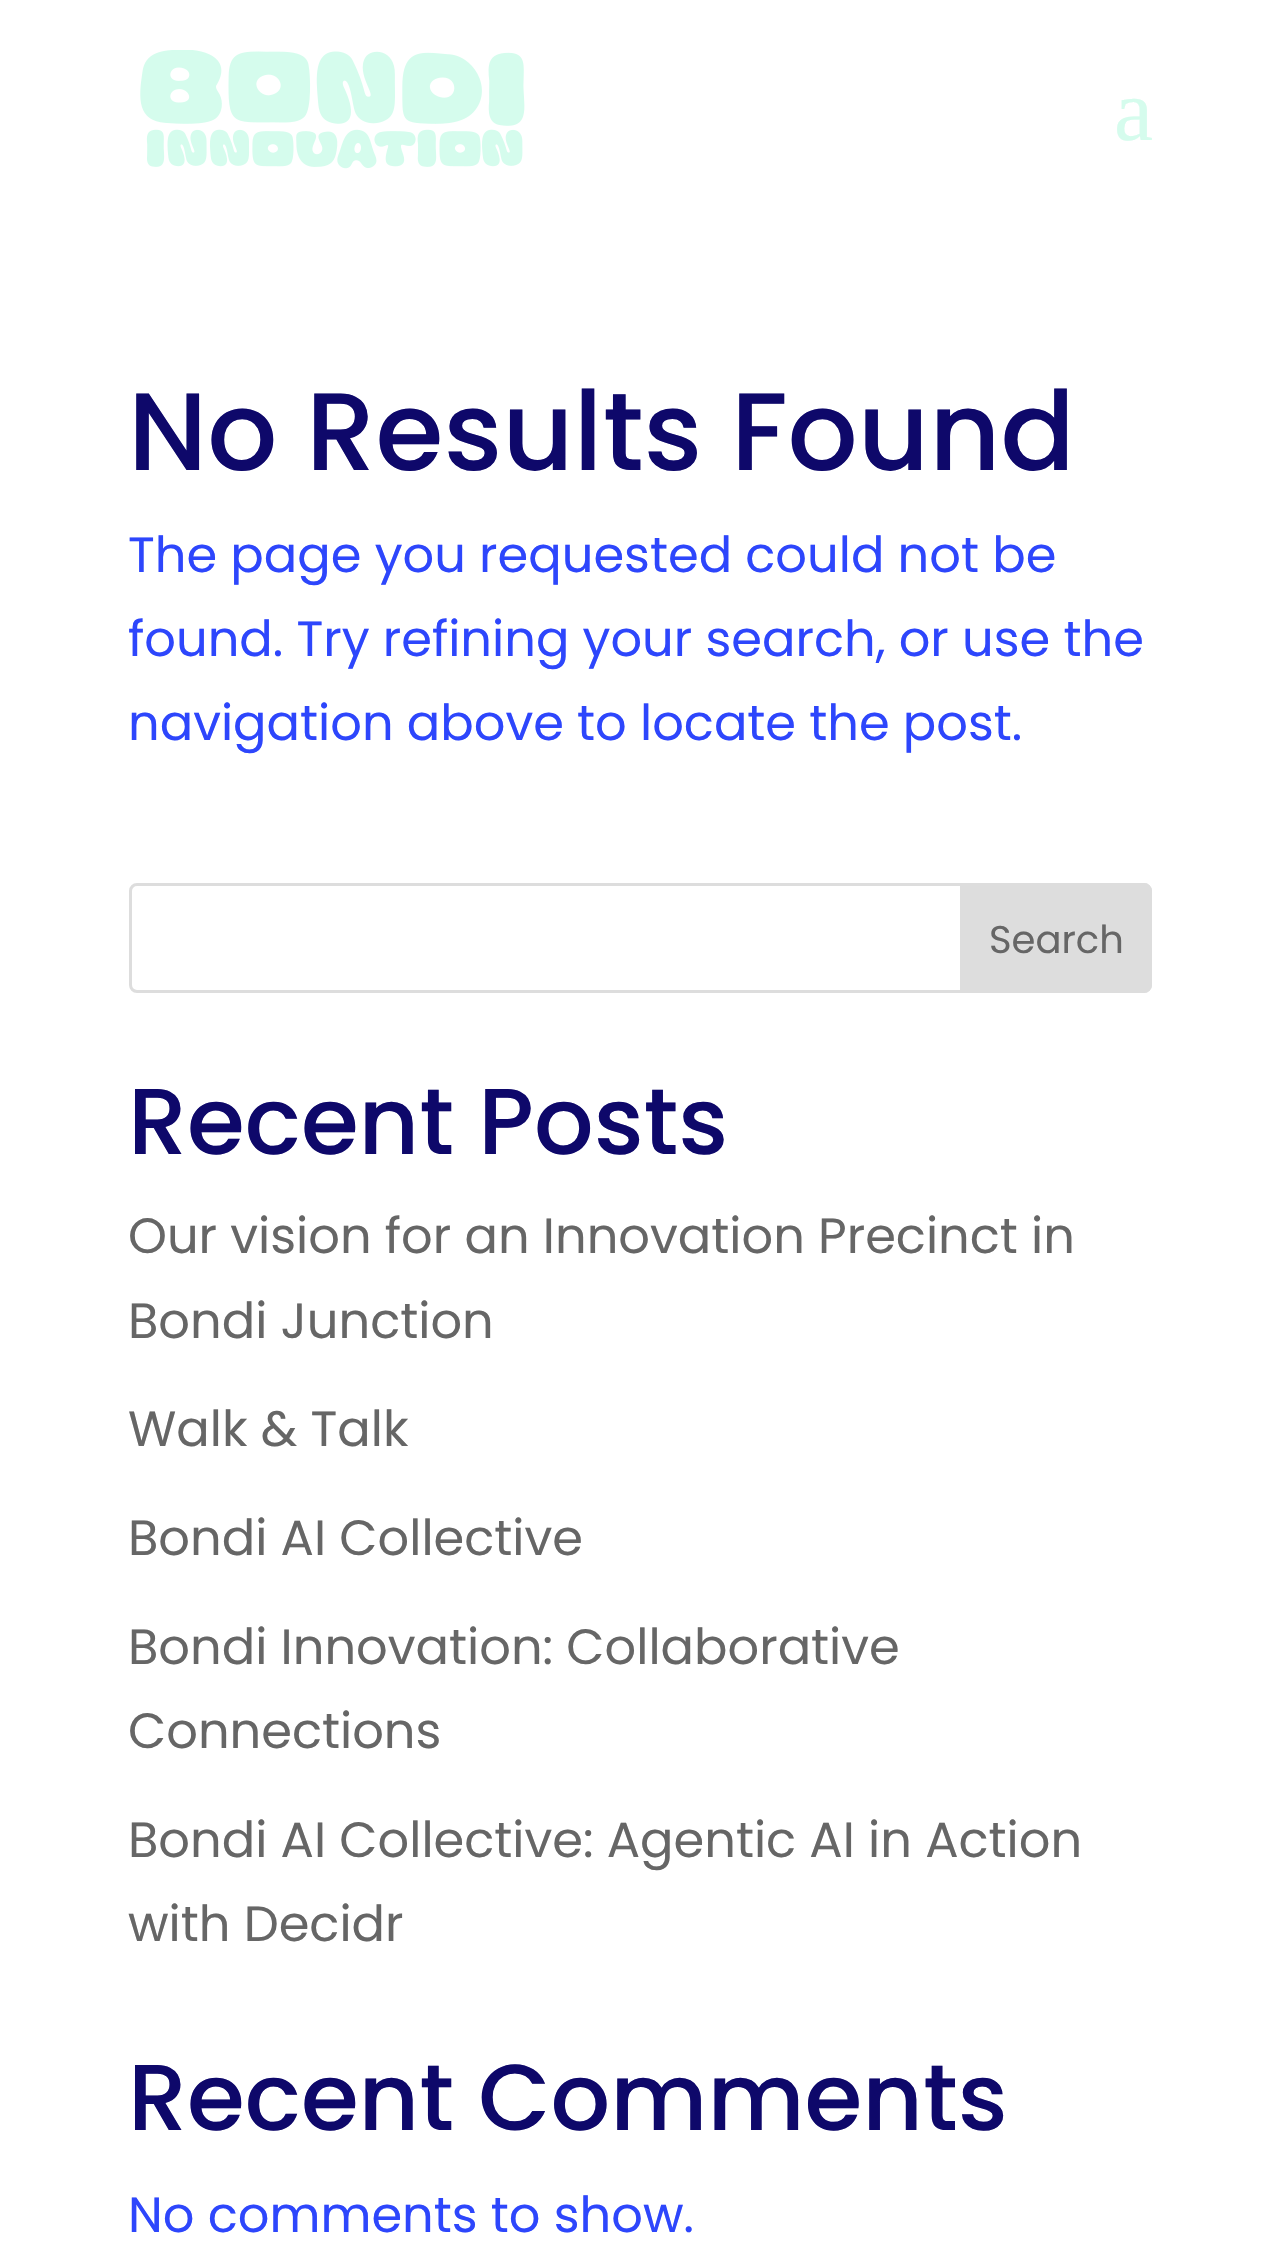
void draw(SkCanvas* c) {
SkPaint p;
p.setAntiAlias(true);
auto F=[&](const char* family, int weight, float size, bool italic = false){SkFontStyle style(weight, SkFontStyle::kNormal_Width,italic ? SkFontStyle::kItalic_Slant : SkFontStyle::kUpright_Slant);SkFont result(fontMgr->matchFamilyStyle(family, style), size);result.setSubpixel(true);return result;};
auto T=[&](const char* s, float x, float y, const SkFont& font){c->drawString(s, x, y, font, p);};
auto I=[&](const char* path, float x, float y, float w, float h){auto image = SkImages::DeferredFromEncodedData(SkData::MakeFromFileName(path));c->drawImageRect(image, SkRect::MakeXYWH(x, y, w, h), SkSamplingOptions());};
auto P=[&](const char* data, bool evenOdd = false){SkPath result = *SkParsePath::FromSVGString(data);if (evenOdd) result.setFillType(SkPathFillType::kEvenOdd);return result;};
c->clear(0xffffffff);
I("1.png",140,50,385,119);
auto f1 = F("Liberation Serif",400,88);
p.setColor(0xffd5fced);
T("a",1114,140,f1);
auto f2 = F("Poppins",500,110);
p.setColor(0xff0e086a);
T("No Results Found",128,470,f2);
auto f3 = F("Poppins",400,49.5);
p.setColor(0xff2d46fc);
T("The page you requested could not be",128,572,f3);
T("found. Try refining your search, or use the",128,656,f3);
T("navigation above to locate the post.",128,740,f3);
p.setStroke(true);
p.setStrokeWidth(3);
p.setColor(0xffdddddd);
c->drawRoundRect(SkRect::MakeXYWH(130.5,884.5,1020,107),6.5,6.5,p);
p.setStroke(false);
c->drawPath(P("M961.5 884.5h182.5c3.5 0 6.5 3 6.5 6.5v94c0 3.5-3 6.5-6.5 6.5h-182.5z"),p);
p.setStroke(true);
c->drawPath(P("M961.5 884.5h182.5c3.5 0 6.5 3 6.5 6.5v94c0 3.5-3 6.5-6.5 6.5h-182.5z"),p);
auto f4 = F("Poppins",400,38.5);
p.setStroke(false);
p.setColor(0xff666666);
T("Search",989,953,f4);
auto f5 = F("Poppins",500,93.5);
p.setColor(0xff0e086a);
T("Recent Posts",128,1154,f5);
p.setColor(0xff666666);
T("Our vision for an Innovation Precinct in",128,1253,f3);
T("Bondi Junction",128,1338,f3);
T("Walk & Talk",128,1446,f3);
T("Bondi AI Collective",128,1555,f3);
T("Bondi Innovation: Collaborative",128,1664,f3);
T("Connections",128,1748,f3);
T("Bondi AI Collective: Agentic AI in Action",128,1857,f3);
T("with Decidr",128,1941,f3);
p.setColor(0xff0e086a);
T("Recent Comments",128,2130,f5);
p.setColor(0xff2d46fc);
T("No comments to show.",128,2232,f3);
}
